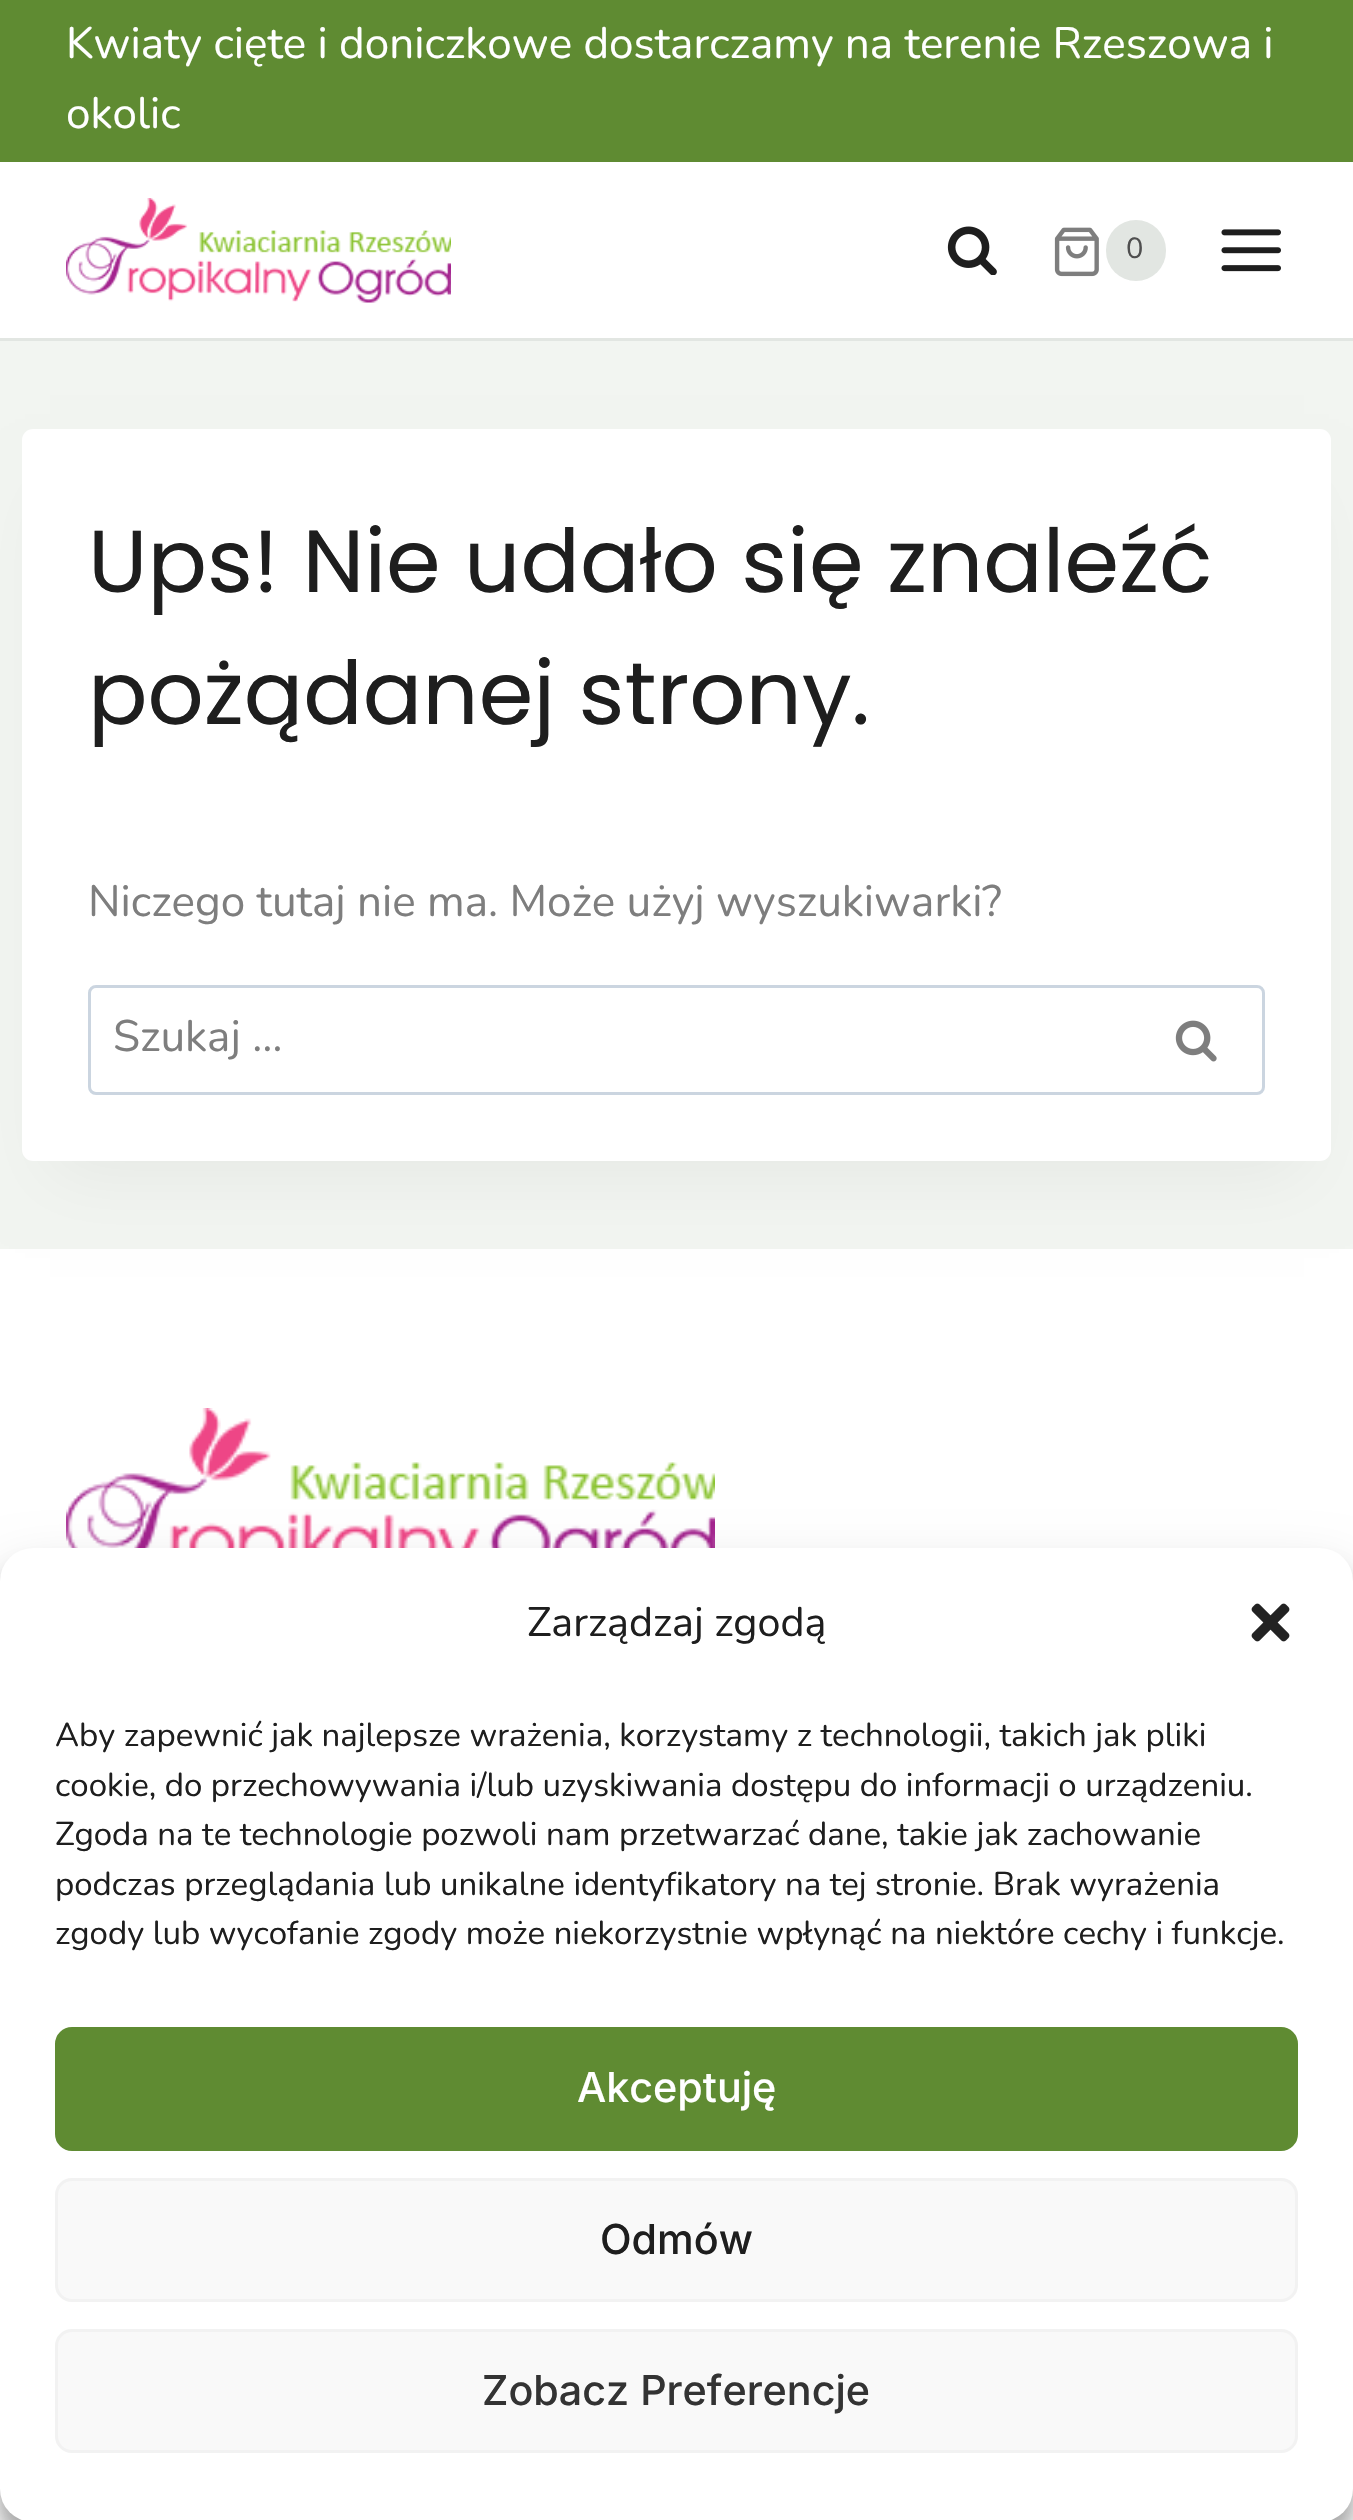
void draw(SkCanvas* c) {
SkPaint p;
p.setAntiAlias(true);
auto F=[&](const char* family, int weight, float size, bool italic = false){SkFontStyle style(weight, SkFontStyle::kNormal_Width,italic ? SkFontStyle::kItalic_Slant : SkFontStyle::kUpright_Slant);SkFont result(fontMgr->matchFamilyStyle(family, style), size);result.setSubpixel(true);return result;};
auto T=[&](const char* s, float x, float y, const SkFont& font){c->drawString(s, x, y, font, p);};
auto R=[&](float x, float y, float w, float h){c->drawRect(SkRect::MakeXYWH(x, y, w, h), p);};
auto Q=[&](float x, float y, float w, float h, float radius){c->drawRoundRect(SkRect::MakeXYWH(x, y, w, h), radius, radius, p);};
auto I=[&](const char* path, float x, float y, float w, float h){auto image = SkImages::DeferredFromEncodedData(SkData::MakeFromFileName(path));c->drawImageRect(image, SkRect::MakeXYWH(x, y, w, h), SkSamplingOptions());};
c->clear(0xfff2f5f1);
p.setColor(0xffffffff);
R(0,162,1353,176);
p.setColor(0xff5f8b32);
R(0,0,1353,162);
auto f1 = F("Nunito",400,44);
p.setColor(0xffffffff);
T("Kwiaty cięte i doniczkowe dostarczamy na terenie Rzeszowa i",66,58,f1);
T("okolic",66,128,f1);
p.setColor(0xffe2e6e2);
R(0,338,1353,3);
I("1.png",66,198,385,105);
I("2.png",947,226,50,49);
I("3.png",1054,227,45,50);
Q(1106,220,60,61,30);
auto f2 = F("Nunito",400,29);
p.setColor(0xff4f4f4f);
T("0",1126,258,f2);
I("4.png",1221,229,60,43);
p.setColor(0xffffffff);
R(0,1249,1353,1271);
p.setColor(0x0d000000);
p.setMaskFilter(SkMaskFilter::MakeBlur(kNormal_SkBlurStyle, 34.5));
c->drawRect(SkRect::MakeXYWH(50,498,1254,676),p);
p.setMaskFilter(nullptr);
p.setColor(0xffffffff);
Q(22,429,1309,732,11);
auto f3 = F("Poppins",400,88);
p.setColor(0xff1e1e1e);
T("Ups! Nie udało się znaleźć",88,592,f3);
T("pożądanej strony.",88,724,f3);
p.setColor(0xff7e7e7e);
T("Niczego tutaj nie ma. Może użyj wyszukiwarki?",88,916,f1);
p.setStroke(true);
p.setStrokeWidth(3);
p.setColor(0xffcbd5e0);
c->drawRoundRect(SkRect::MakeXYWH(89.5,986.5,1174,107),6.5,6.5,p);
p.setStroke(false);
p.setColor(0xff7e7e7e);
T("Szukaj …",113,1051,f1);
I("5.png",1175,1020,42,42);
I("6.png",66,1408,649,140);
p.setColor(0x3b000000);
p.setMaskFilter(SkMaskFilter::MakeBlur(kNormal_SkBlurStyle, 8));
c->drawRoundRect(SkRect::MakeXYWH(0,1565,1353,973),33,33,p);
p.setMaskFilter(nullptr);
p.setColor(0x30000000);
p.setMaskFilter(SkMaskFilter::MakeBlur(kNormal_SkBlurStyle, 27.5));
c->drawRoundRect(SkRect::MakeXYWH(0,1576,1353,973),33,33,p);
p.setMaskFilter(nullptr);
p.setColor(0xffffffff);
Q(0,1548,1353,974,33);
auto f4 = F("Nunito",400,41.25);
p.setColor(0xff1e1e1e);
T("Zarządzaj zgodą",527,1636,f4);
I("7.png",1251,1603,39,39);
auto f5 = F("Nunito",400,33);
T("Aby zapewnić jak najlepsze wrażenia, korzystamy z technologii, takich jak pliki",55,1746,f5);
T("cookie, do przechowywania i/lub uzyskiwania dostępu do informacji o urządzeniu.",55,1796,f5);
T("Zgoda na te technologie pozwoli nam przetwarzać dane, takie jak zachowanie",55,1845,f5);
T("podczas przeglądania lub unikalne identyfikatory na tej stronie. Brak wyrażenia",55,1895,f5);
T("zgody lub wycofanie zgody może niekorzystnie wpłynąć na niektóre cechy i funkcje.",55,1944,f5);
p.setColor(0xff5f8b32);
c->drawRoundRect(SkRect::MakeXYWH(56.5,2028.5,1240,121),15.5,15.5,p);
p.setStroke(true);
c->drawRoundRect(SkRect::MakeXYWH(56.5,2028.5,1240,121),15.5,15.5,p);
auto f6 = F("Inter",500,41.25);
p.setStroke(false);
p.setColor(0xffffffff);
T("Akceptuję",577,2102,f6);
p.setColor(0xfff9f9f9);
c->drawRoundRect(SkRect::MakeXYWH(56.5,2179.5,1240,121),15.5,15.5,p);
p.setStroke(true);
p.setColor(0xfff2f2f2);
c->drawRoundRect(SkRect::MakeXYWH(56.5,2179.5,1240,121),15.5,15.5,p);
p.setStroke(false);
p.setColor(0xff1e1e1e);
T("Odmów",600,2254,f6);
p.setColor(0xfff9f9f9);
c->drawRoundRect(SkRect::MakeXYWH(56.5,2330.5,1240,121),15.5,15.5,p);
p.setStroke(true);
p.setColor(0xfff2f2f2);
c->drawRoundRect(SkRect::MakeXYWH(56.5,2330.5,1240,121),15.5,15.5,p);
p.setStroke(false);
p.setColor(0xff333333);
T("Zobacz Preferencje",482,2405,f6);
}
